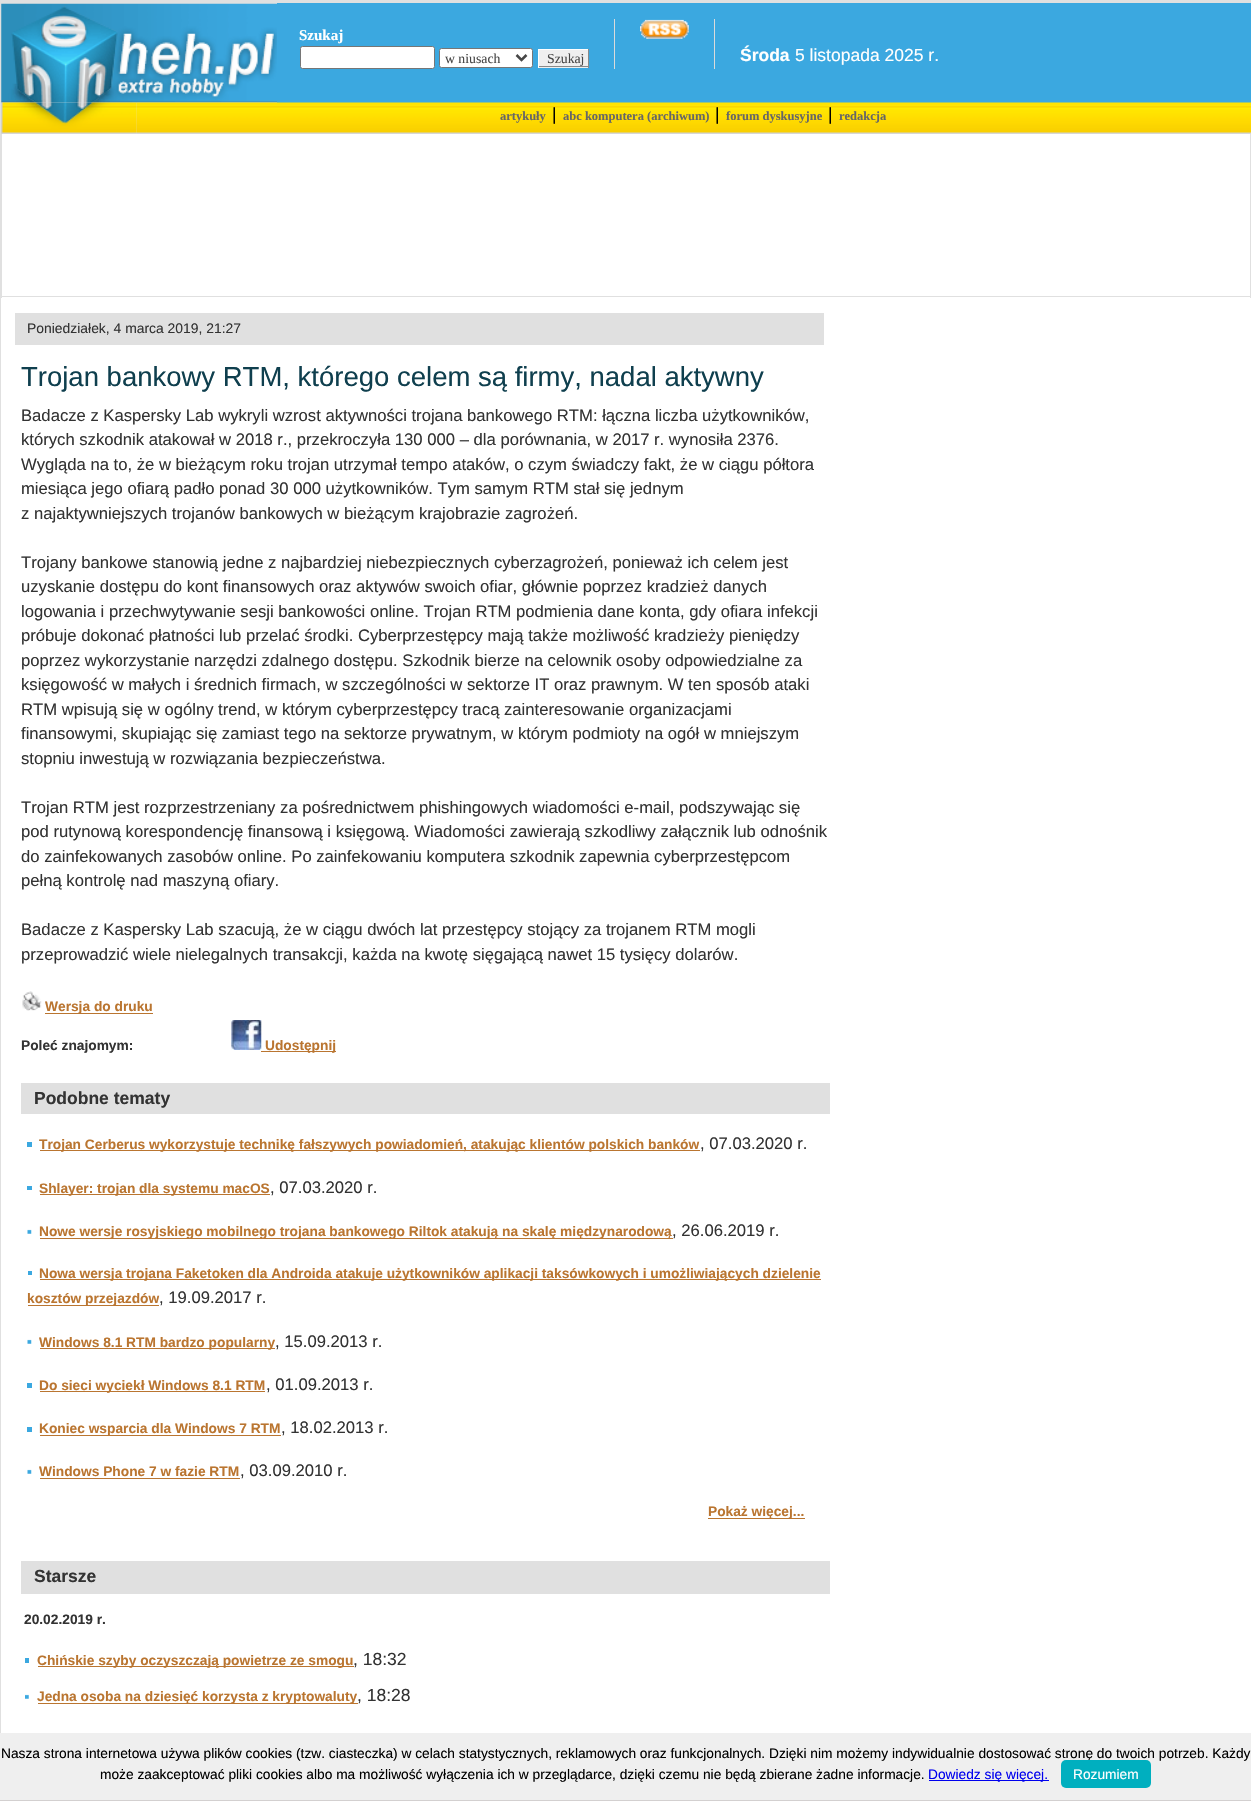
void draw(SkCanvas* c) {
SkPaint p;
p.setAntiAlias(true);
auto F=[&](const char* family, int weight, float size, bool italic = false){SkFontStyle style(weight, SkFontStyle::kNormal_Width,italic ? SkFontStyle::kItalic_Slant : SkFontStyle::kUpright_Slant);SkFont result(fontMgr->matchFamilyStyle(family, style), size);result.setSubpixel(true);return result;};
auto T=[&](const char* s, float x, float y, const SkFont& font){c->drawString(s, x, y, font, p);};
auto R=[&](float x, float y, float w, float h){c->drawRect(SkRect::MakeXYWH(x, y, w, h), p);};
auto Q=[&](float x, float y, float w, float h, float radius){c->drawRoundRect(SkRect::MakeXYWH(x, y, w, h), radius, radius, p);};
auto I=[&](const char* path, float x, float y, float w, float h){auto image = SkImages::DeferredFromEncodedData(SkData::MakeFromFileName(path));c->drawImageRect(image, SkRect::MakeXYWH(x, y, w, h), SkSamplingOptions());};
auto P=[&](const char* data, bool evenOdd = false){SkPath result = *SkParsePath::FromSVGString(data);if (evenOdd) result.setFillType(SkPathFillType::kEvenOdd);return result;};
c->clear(0xffe0e0e0);
I("1.png",1,3,276,100);
p.setColor(0xff3ba8e0);
R(277,3,974,100);
auto f1 = F("Liberation Serif",700,15);
p.setColor(0xffffffff);
T("Szukaj",299,40,f1);
c->drawRoundRect(SkRect::MakeXYWH(300.5,46.5,134,22),2,2,p);
p.setStroke(true);
p.setStrokeWidth(1);
p.setColor(0xff767676);
c->drawRoundRect(SkRect::MakeXYWH(300.5,46.5,134,22),2,2,p);
p.setStroke(false);
p.setColor(0xffffffff);
c->drawRoundRect(SkRect::MakeXYWH(439.5,48.5,93,19),2,2,p);
p.setStroke(true);
p.setColor(0xff767676);
c->drawRoundRect(SkRect::MakeXYWH(439.5,48.5,93,19),2,2,p);
p.setStrokeWidth(2.5);
p.setColor(0xff474747);
c->drawPath(P("M516.5 55l5 5l5-5"),p);
auto f2 = F("Liberation Serif",400,13.75);
p.setStroke(false);
T("w niusach",445,63,f2);
p.setColor(0xffefefef);
R(539,50,49,18);
p.setColor(0xffffffff);
R(538,49,51,1);
p.setColor(0xff898989);
R(588,49,1,19);
R(538,66,51,1);
p.setColor(0xffffffff);
R(538,49,1,19);
p.setColor(0xff474747);
T("Szukaj",547,63,f2);
p.setColor(0xffdbdbdb);
R(614,19,1,50);
I("2.png",640,19,49,20);
R(714,19,1,50);
auto f3 = F("Liberation Sans",700,17.5);
p.setColor(0xffffffff);
T("Środa",740,61,f3);
auto f4 = F("Liberation Sans",400,17.5);
T("5 listopada 2025 r.",795,61,f4);
I("3.png",1,102,136,32);
I("4.png",136,102,1115,32);
auto f5 = F("Liberation Serif",700,12.5);
p.setColor(0xff666666);
T("artykuły",500,120,f5);
p.setColor(0xff000000);
T("|",552,120,f4);
p.setColor(0xff666666);
T("abc komputera (archiwum)",563,120,f5);
p.setColor(0xff000000);
T("|",715,120,f4);
p.setColor(0xff666666);
T("forum dyskusyjne",726,120,f5);
p.setColor(0xff000000);
T("|",828,120,f4);
p.setColor(0xff666666);
T("redakcja",839,120,f5);
p.setColor(0xffffffff);
R(1,134,1250,1599);
p.setColor(0xffe0e0e0);
R(1250,134,1,164);
R(1,296,1250,1);
R(1,134,1,164);
R(15,313,809,32);
auto f6 = F("Liberation Sans",400,13.9);
p.setColor(0xff333333);
T("Poniedziałek, 4 marca 2019, 21:27",27,333,f6);
auto f7 = F("Liberation Sans",400,27.5);
p.setColor(0xff0f3f4e);
T("Trojan bankowy RTM, którego celem są firmy, nadal aktywny",21,386,f7);
auto f8 = F("Liberation Sans",400,16.65);
p.setColor(0xff333333);
T("Badacze z Kaspersky Lab wykryli wzrost aktywności trojana bankowego RTM: łączna liczba użytkowników,",21,421,f8);
T("których szkodnik atakował w 2018 r., przekroczyła 130 000 – dla porównania, w 2017 r. wynosiła 2376.",21,445,f8);
T("Wygląda na to, że w bieżącym roku trojan utrzymał tempo ataków, o czym świadczy fakt, że w ciągu półtora",21,470,f8);
T("miesiąca jego ofiarą padło ponad 30 000 użytkowników. Tym samym RTM stał się jednym",21,494,f8);
T("z najaktywniejszych trojanów bankowych w bieżącym krajobrazie zagrożeń.",21,519,f8);
T("Trojany bankowe stanowią jedne z najbardziej niebezpiecznych cyberzagrożeń, ponieważ ich celem jest",21,568,f8);
T("uzyskanie dostępu do kont finansowych oraz aktywów swoich ofiar, głównie poprzez kradzież danych",21,592,f8);
T("logowania i przechwytywanie sesji bankowości online. Trojan RTM podmienia dane konta, gdy ofiara infekcji",21,617,f8);
T("próbuje dokonać płatności lub przelać środki. Cyberprzestępcy mają także możliwość kradzieży pieniędzy",21,641,f8);
T("poprzez wykorzystanie narzędzi zdalnego dostępu. Szkodnik bierze na celownik osoby odpowiedzialne za",21,666,f8);
T("księgowość w małych i średnich firmach, w szczególności w sektorze IT oraz prawnym. W ten sposób ataki",21,690,f8);
T("RTM wpisują się w ogólny trend, w którym cyberprzestępcy tracą zainteresowanie organizacjami",21,715,f8);
T("finansowymi, skupiając się zamiast tego na sektorze prywatnym, w którym podmioty na ogół w mniejszym",21,739,f8);
T("stopniu inwestują w rozwiązania bezpieczeństwa.",21,764,f8);
T("Trojan RTM jest rozprzestrzeniany za pośrednictwem phishingowych wiadomości e-mail, podszywając się",21,813,f8);
T("pod rutynową korespondencję finansową i księgową. Wiadomości zawierają szkodliwy załącznik lub odnośnik",21,837,f8);
T("do zainfekowanych zasobów online. Po zainfekowaniu komputera szkodnik zapewnia cyberprzestępcom",21,862,f8);
T("pełną kontrolę nad maszyną ofiary.",21,886,f8);
T("Badacze z Kaspersky Lab szacują, że w ciągu dwóch lat przestępcy stojący za trojanem RTM mogli",21,935,f8);
T("przeprowadzić wiele nielegalnych transakcji, każda na kwotę sięgającą nawet 15 tysięcy dolarów.",21,960,f8);
I("5.png",22,991,20,20);
p.setColor(0xffba7530);
R(45,1013,108,1);
auto f9 = F("Liberation Sans",700,13.75);
T("Wersja do druku",45,1011,f9);
p.setColor(0xff333333);
T("Poleć znajomym:",21,1050,f9);
I("6.png",231,1020,31,30);
p.setColor(0xffba7530);
R(261,1051,75,1);
T("Udostępnij",265,1050,f9);
p.setColor(0xffe0e0e0);
R(21,1083,809,31);
p.setColor(0xff333333);
T("Podobne tematy",34,1104,f3);
p.setColor(0xffba7530);
R(40,1150,660,1);
T("Trojan Cerberus wykorzystuje technikę fałszywych powiadomień, atakując klientów polskich banków",39,1149,f9);
p.setColor(0xff3ba8e0);
R(27,1142,5,5);
p.setColor(0xff333333);
T(", 07.03.2020 r.",700,1149,f8);
p.setColor(0xffba7530);
R(40,1194,230,1);
T("Shlayer: trojan dla systemu macOS",39,1193,f9);
p.setColor(0xff3ba8e0);
R(27,1186,5,4);
p.setColor(0xff333333);
T(", 07.03.2020 r.",270,1193,f8);
I("7.png",27,1229,5,5);
p.setColor(0xffba7530);
R(40,1238,633,1);
T("Nowe wersje rosyjskiego mobilnego trojana bankowego Riltok atakują na skalę międzynarodową",39,1236,f9);
p.setColor(0xff333333);
T(", 26.06.2019 r.",672,1236,f8);
p.setColor(0xffba7530);
R(40,1279,781,1);
T("Nowa wersja trojana Faketoken dla Androida atakuje użytkowników aplikacji taksówkowych i umożliwiających dzielenie",39,1278,f9);
p.setColor(0xff3ba8e0);
R(28,1271,4,4);
p.setColor(0xffba7530);
R(28,1305,131,1);
T("kosztów przejazdów",27,1303,f9);
p.setColor(0xff333333);
T(", 19.09.2017 r.",159,1303,f8);
I("7.png",27,1339,5,5);
p.setColor(0xffba7530);
R(40,1348,235,1);
T("Windows 8.1 RTM bardzo popularny",39,1347,f9);
p.setColor(0xff333333);
T(", 15.09.2013 r.",275,1347,f8);
p.setColor(0xffba7530);
R(40,1391,225,1);
T("Do sieci wyciekł Windows 8.1 RTM",39,1390,f9);
p.setColor(0xff3ba8e0);
R(27,1383,5,5);
p.setColor(0xff333333);
T(", 01.09.2013 r.",266,1390,f8);
p.setColor(0xffba7530);
R(40,1435,241,1);
T("Koniec wsparcia dla Windows 7 RTM",39,1433,f9);
p.setColor(0xff3ba8e0);
R(27,1427,5,5);
p.setColor(0xff333333);
T(", 18.02.2013 r.",281,1433,f8);
I("7.png",27,1469,5,5);
p.setColor(0xffba7530);
T("Windows Phone 7 w fazie RTM",39,1476,f9);
R(40,1478,200,1);
p.setColor(0xff333333);
T(", 03.09.2010 r.",240,1476,f8);
p.setColor(0xffba7530);
R(708,1518,97,1);
T("Pokaż więcej...",708,1516,f9);
p.setColor(0xffe0e0e0);
R(21,1561,809,33);
p.setColor(0xff333333);
T("Starsze",34,1582,f3);
T("20.02.2019 r.",24,1624,f9);
p.setColor(0xffba7530);
R(38,1666,316,1);
T("Chińskie szyby oczyszczają powietrze ze smogu",37,1665,f9);
p.setColor(0xff3ba8e0);
R(25,1658,4,5);
p.setColor(0xff333333);
T(", 18:32",353,1665,f4);
I("8.png",25,1694,4,5);
p.setColor(0xffba7530);
R(38,1703,320,1);
T("Jedna osoba na dziesięć korzysta z kryptowaluty",37,1701,f9);
p.setColor(0xff333333);
T(", 18:28",357,1701,f4);
p.setColor(0xffefefef);
R(0,1733,1251,67);
p.setColor(0xffd3d0d0);
R(0,1800,1251,1);
auto f10 = F("Liberation Sans",400,13.75);
p.setColor(0xff000000);
T("Nasza strona internetowa używa plików cookies (tzw. ciasteczka) w celach statystycznych, reklamowych oraz funkcjonalnych. Dzięki nim możemy indywidualnie dostosować stronę do twoich potrzeb. Każdy",1,1758,f10);
T("może zaakceptować pliki cookies albo ma możliwość wyłączenia ich w przeglądarce, dzięki czemu nie będą zbierane żadne informacje.",100,1779,f10);
p.setColor(0xff0000ee);
R(929,1780,120,1);
T("Dowiedz się więcej.",928,1779,f10);
p.setColor(0xff00afbf);
Q(1061,1760,90,28,5);
p.setColor(0xffffffff);
T("Rozumiem",1073,1779,f10);
}
